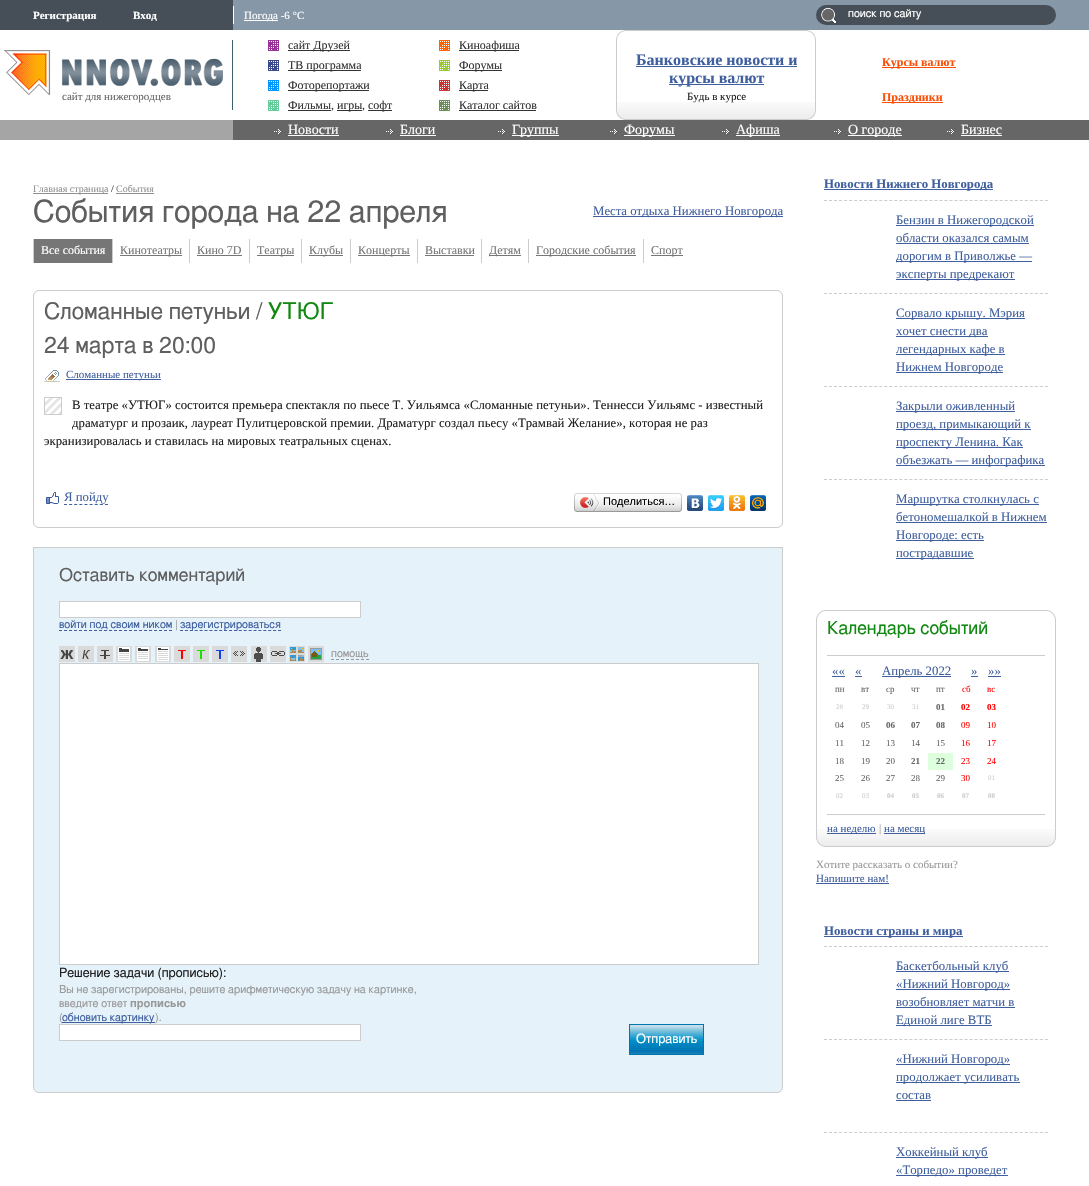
void draw(SkCanvas* c) {
SkPaint p;
p.setAntiAlias(true);
auto F=[&](const char* family, int weight, float size, bool italic = false){SkFontStyle style(weight, SkFontStyle::kNormal_Width,italic ? SkFontStyle::kItalic_Slant : SkFontStyle::kUpright_Slant);SkFont result(fontMgr->matchFamilyStyle(family, style), size);result.setSubpixel(true);return result;};
auto T=[&](const char* s, float x, float y, const SkFont& font){c->drawString(s, x, y, font, p);};
auto R=[&](float x, float y, float w, float h){c->drawRect(SkRect::MakeXYWH(x, y, w, h), p);};
auto Q=[&](float x, float y, float w, float h, float radius){c->drawRoundRect(SkRect::MakeXYWH(x, y, w, h), radius, radius, p);};
auto I=[&](const char* path, float x, float y, float w, float h){auto image = SkImages::DeferredFromEncodedData(SkData::MakeFromFileName(path));c->drawImageRect(image, SkRect::MakeXYWH(x, y, w, h), SkSamplingOptions());};
auto P=[&](const char* data, bool evenOdd = false){SkPath result = *SkParsePath::FromSVGString(data);if (evenOdd) result.setFillType(SkPathFillType::kEvenOdd);return result;};
c->clear(0xffffffff);
p.setColor(0xff8697a8);
R(233,0,856,30);
p.setColor(0xff464e57);
R(0,0,233,30);
auto f1 = F("Liberation Serif",700,11);
p.setColor(0xffffffff);
T("Регистрация",33,19,f1);
T("Вход",133,19,f1);
R(233,6,1,18);
R(244,20,34,1);
auto f2 = F("Liberation Serif",400,11);
T("Погода -6 °C",244,19,f2);
p.setColor(0xff464e57);
Q(816,5,240,20,10);
I("1.png",821,7,15,16);
auto f3 = F("FreeSans",400,11);
p.setColor(0xffffffff);
T("поиск по сайту",848,17,f3);
I("2.png",4,50,219,45);
p.setColor(0xff3d5e6f);
R(232,40,1,70);
p.setColor(0xff666666);
T("сайт для нижегородцев",62,100,f2);
p.setColor(0xff993399);
R(268,40,11,11);
I("3.png",269,41,9,9);
p.setColor(0xff333333);
R(288,50,62,1);
auto f4 = F("Liberation Serif",400,12);
T("сайт Друзей",288,49,f4);
p.setColor(0xffff6600);
R(439,40,11,11);
I("4.png",440,41,9,9);
p.setColor(0xff333333);
R(459,50,60,1);
T("Киноафиша",459,49,f4);
p.setColor(0xff3b4b8c);
R(268,60,11,11);
I("5.png",269,61,9,9);
p.setColor(0xff333333);
R(288,70,73,1);
T("ТВ программа",288,69,f4);
p.setColor(0xff99cc33);
R(439,60,11,11);
I("6.png",440,61,9,9);
p.setColor(0xff333333);
R(459,70,43,1);
T("Форумы",459,69,f4);
p.setColor(0xff0099ff);
R(268,80,11,11);
I("7.png",269,81,9,9);
p.setColor(0xff333333);
R(288,90,81,1);
T("Фоторепортажи",288,89,f4);
p.setColor(0xffcc3333);
R(439,80,11,11);
I("8.png",440,81,9,9);
p.setColor(0xff333333);
R(459,90,29,1);
T("Карта",459,89,f4);
p.setColor(0xff66cc99);
R(268,100,11,11);
I("9.png",269,101,9,9);
p.setColor(0xff333333);
T("Фильмы",288,109,f4);
R(288,110,43,1);
T(",",331,109,f4);
R(337,110,25,1);
T("игры",337,109,f4);
T(",",362,109,f4);
R(368,110,24,1);
T("софт",368,109,f4);
p.setColor(0xff6b8f59);
R(439,100,11,11);
I("10.png",440,101,9,9);
p.setColor(0xff333333);
T("Каталог сайтов",459,109,f4);
R(459,110,77,1);
I("11.png",617,102,198,17);
p.setStroke(true);
p.setStrokeWidth(1);
p.setColor(0xffcccccc);
c->drawRect(SkRect::MakeXYWH(616.5,30.5,199,89),p);
I("12.png",616,30,9,9);
I("13.png",807,30,9,9);
auto f5 = F("Liberation Serif",700,16);
p.setStroke(false);
p.setColor(0xff3f5f9e);
T("Банковские новости и",636,65,f5);
R(636,66,161,1);
R(669,84,95,1);
T("курсы валют",669,83,f5);
p.setColor(0xff202020);
T("Будь в курсе",687,100,f2);
I("14.png",616,111,9,9);
I("15.png",807,111,9,9);
p.setColor(0xfff84e05);
R(882,67,74,1);
auto f6 = F("Liberation Serif",700,12);
T("Курсы валют",882,66,f6);
R(882,102,61,1);
T("Праздники",882,101,f6);
p.setColor(0xff666666);
R(233,120,856,20);
p.setColor(0xffa5a5a5);
R(0,120,233,20);
I("16.png",274,129,7,5);
auto f7 = F("Liberation Serif",400,14);
p.setColor(0xffffffff);
T("Новости",288,134,f7);
R(288,135,51,1);
I("16.png",386,129,7,5);
T("Блоги",400,134,f7);
R(400,135,36,1);
I("16.png",498,129,7,5);
R(512,135,47,1);
T("Группы",512,134,f7);
I("16.png",610,129,7,5);
R(624,135,51,1);
T("Форумы",624,134,f7);
I("16.png",722,129,7,5);
R(736,135,44,1);
T("Афиша",736,134,f7);
I("16.png",834,129,7,5);
R(848,135,54,1);
T("О городе",848,134,f7);
I("16.png",947,129,7,5);
T("Бизнес",961,134,f7);
R(961,135,41,1);
p.setColor(0xff8f8f8f);
R(33,193,75,1);
auto f8 = F("Liberation Serif",400,10);
T("Главная страница",33,192,f8);
p.setColor(0xff202020);
T("/",111,192,f8);
p.setColor(0xff8f8f8f);
T("События",116,192,f8);
R(116,193,38,1);
auto f9 = F("FreeSans",400,30.75);
p.setColor(0xff5f5f5f);
T("События города на 22 апреля",33,222,f9);
p.setColor(0xff3f5f9e);
R(593,216,190,1);
auto f10 = F("Liberation Serif",400,12.8);
T("Места отдыха Нижнего Новгорода",593,215,f10);
p.setColor(0xff767676);
R(34,239,78,24);
p.setColor(0xffcccccc);
R(33,239,1,24);
p.setColor(0xffffffff);
T("Все события",41,254,f4);
p.setColor(0xffcccccc);
R(112,239,1,24);
p.setColor(0xff767676);
R(120,255,62,1);
T("Кинотеатры",120,254,f4);
p.setColor(0xffcccccc);
R(189,239,1,24);
p.setColor(0xff767676);
T("Кино 7D",197,254,f4);
R(197,255,45,1);
p.setColor(0xffcccccc);
R(249,239,1,24);
p.setColor(0xff767676);
R(257,255,37,1);
T("Театры",257,254,f4);
p.setColor(0xffcccccc);
R(301,239,1,24);
p.setColor(0xff767676);
R(309,255,34,1);
T("Клубы",309,254,f4);
p.setColor(0xffcccccc);
R(350,239,1,24);
p.setColor(0xff767676);
R(358,255,52,1);
T("Концерты",358,254,f4);
p.setColor(0xffcccccc);
R(417,239,1,24);
p.setColor(0xff767676);
T("Выставки",425,254,f4);
R(425,255,49,1);
p.setColor(0xffcccccc);
R(481,239,1,24);
p.setColor(0xff767676);
R(489,255,32,1);
T("Детям",489,254,f4);
p.setColor(0xffcccccc);
R(528,239,1,24);
p.setColor(0xff767676);
R(536,255,100,1);
T("Городские события",536,254,f4);
p.setColor(0xffcccccc);
R(643,239,1,24);
p.setColor(0xff767676);
R(651,255,32,1);
T("Спорт",651,254,f4);
p.setStroke(true);
p.setColor(0xffcccccc);
c->drawRect(SkRect::MakeXYWH(33.5,290.5,749,237),p);
I("17.png",33,290,5,5);
I("18.png",778,290,5,5);
auto f11 = F("FreeSans",400,23);
p.setStroke(false);
p.setColor(0xff5f5f5f);
T("Сломанные петуньи /",44,319,f11);
p.setColor(0xff118811);
T("УТЮГ",268,319,f11);
p.setColor(0xff5f5f5f);
T("24 марта в 20:00",44,353,f11);
I("19.png",44,370,16,12);
p.setColor(0xff3f5f9e);
R(66,379,95,1);
T("Сломанные петуньи",66,378,f2);
I("20.png",45,398,16,16);
p.setStroke(true);
p.setColor(0xffcccccc);
c->drawRect(SkRect::MakeXYWH(44.5,397.5,17,17),p);
p.setStroke(false);
p.setColor(0xff202020);
T("В театре «УТЮГ» состоится премьера спектакля по пьесе Т. Уильямса «Сломанные петуньи». Теннесси Уильямс - известный",72,409,f10);
T("драматург и прозаик, лауреат Пулитцеровской премии. Драматург создал пьесу «Трамвай Желание», которая не раз",72,427,f10);
T("экранизировалась и ставилась на мировых театральных сценах.",44,445,f10);
I("21.png",46,492,13,12);
p.setColor(0xff3f5f9e);
T("Я пойду",64,501,f10);
p.setStroke(true);
p.setPathEffect(SkDashPathEffect::Make({{3,2.12f}}, 0));
c->drawPath(P("M64 504.5h44"),p);
p.setPathEffect(nullptr);
I("22.png",577,493,102,19);
I("23.png",574,493,3,19);
I("24.png",580,494,20,17);
auto f12 = F("Liberation Sans",400,11);
p.setStroke(false);
p.setColor(0xff000000);
T("Поделиться…",603,505,f12);
I("25.png",679,493,3,19);
I("26.png",687,495,16,16);
I("27.png",708,495,16,16);
I("28.png",729,495,16,16);
I("29.png",750,495,16,16);
I("30.png",33,523,5,5);
I("31.png",778,523,5,5);
p.setColor(0xffe5f2fa);
c->drawRect(SkRect::MakeXYWH(33.5,547.5,749,545),p);
p.setStroke(true);
p.setColor(0xffcccccc);
c->drawRect(SkRect::MakeXYWH(33.5,547.5,749,545),p);
auto f13 = F("FreeSans",400,18);
p.setStroke(false);
p.setColor(0xff5f5f5f);
T("Оставить комментарий",59,581,f13);
p.setColor(0xffffffff);
c->drawRect(SkRect::MakeXYWH(59.5,601.5,301,16),p);
p.setStroke(true);
p.setColor(0xffcccccc);
c->drawRect(SkRect::MakeXYWH(59.5,601.5,301,16),p);
p.setStroke(false);
p.setColor(0xff3f5f9e);
T("войти под своим ником",59,628,f3);
p.setStroke(true);
p.setPathEffect(SkDashPathEffect::Make({{3,2}}, 0));
c->drawPath(P("M59 630.5h113"),p);
p.setPathEffect(nullptr);
p.setStroke(false);
p.setColor(0xff999999);
T("|",175,628,f3);
p.setStroke(true);
p.setColor(0xff3f5f9e);
p.setPathEffect(SkDashPathEffect::Make({{3,1.9f}}, 0));
c->drawPath(P("M180 630.5h101"),p);
p.setPathEffect(nullptr);
p.setStroke(false);
T("зарегистрироваться",180,628,f3);
I("32.png",59,646,16,16);
I("33.png",78,646,16,16);
I("34.png",97,646,16,16);
I("35.png",116,646,16,16);
I("36.png",135,646,16,16);
I("37.png",155,646,16,16);
I("38.png",174,646,16,16);
I("39.png",193,646,16,16);
I("40.png",212,646,16,16);
I("41.png",231,646,16,16);
I("42.png",251,646,16,16);
I("43.png",270,646,16,16);
I("44.png",289,646,16,16);
I("45.png",308,646,16,16);
p.setColor(0xff999999);
T("помощь",331,657,f3);
p.setStroke(true);
p.setPathEffect(SkDashPathEffect::Make({{3,2}}, 0));
c->drawPath(P("M331 659.5h38"),p);
p.setPathEffect(nullptr);
p.setStroke(false);
p.setColor(0xffffffff);
c->drawRect(SkRect::MakeXYWH(59.5,663.5,699,301),p);
p.setStroke(true);
p.setColor(0xffcccccc);
c->drawRect(SkRect::MakeXYWH(59.5,663.5,699,301),p);
auto f14 = F("FreeSans",400,12.8);
p.setStroke(false);
p.setColor(0xff202020);
T("Решение задачи (прописью):",59,977,f14);
p.setColor(0xff999999);
T("Вы не зарегистрированы, решите арифметическую задачу на картинке,",59,993,f3);
T("введите ответ",59,1007,f3);
auto f15 = F("FreeSans",600,11);
T("прописью",130,1007,f15);
T("(",59,1021,f3);
p.setColor(0xff3f5f9e);
R(62,1022,93,1);
T("обновить картинку",62,1021,f3);
p.setColor(0xff999999);
T(").",155,1021,f3);
p.setColor(0xffffffff);
c->drawRect(SkRect::MakeXYWH(59.5,1024.5,301,16),p);
p.setStroke(true);
p.setColor(0xffcccccc);
c->drawRect(SkRect::MakeXYWH(59.5,1024.5,301,16),p);
I("46.png",630,1025,73,29);
p.setColor(0xff0175b0);
c->drawRect(SkRect::MakeXYWH(629.5,1024.5,74,30),p);
p.setStroke(false);
p.setColor(0xffffffff);
T("Отправить",636,1043,f14);
I("47.png",33,1088,5,5);
I("48.png",778,1088,5,5);
p.setColor(0xff3f5f9e);
R(824,189,169,1);
auto f16 = F("Liberation Serif",700,12.8);
T("Новости Нижнего Новгорода",824,188,f16);
p.setStroke(true);
p.setColor(0xffcccccc);
p.setPathEffect(SkDashPathEffect::Make({{3,2.02f}}, 0));
c->drawPath(P("M824 200.5h224"),p);
p.setPathEffect(nullptr);
p.setStroke(false);
p.setColor(0xff3f5f9e);
R(896,225,138,1);
T("Бензин в Нижегородской",896,224,f10);
T("области оказался самым",896,242,f10);
R(896,243,133,1);
R(896,261,136,1);
T("дорогим в Приволжье —",896,260,f10);
R(896,279,119,1);
T("эксперты предрекают",896,278,f10);
p.setStroke(true);
p.setColor(0xffcccccc);
p.setPathEffect(SkDashPathEffect::Make({{3,2.02f}}, 0));
c->drawPath(P("M824 293.5h224"),p);
p.setPathEffect(nullptr);
p.setStroke(false);
p.setColor(0xff3f5f9e);
R(896,318,129,1);
T("Сорвало крышу. Мэрия",896,317,f10);
R(896,336,92,1);
T("хочет снести два",896,335,f10);
R(896,354,109,1);
T("легендарных кафе в",896,353,f10);
R(896,372,107,1);
T("Нижнем Новгороде",896,371,f10);
p.setStroke(true);
p.setColor(0xffcccccc);
p.setPathEffect(SkDashPathEffect::Make({{3,2.02f}}, 0));
c->drawPath(P("M824 386.5h224"),p);
p.setPathEffect(nullptr);
p.setStroke(false);
p.setColor(0xff3f5f9e);
R(896,411,119,1);
T("Закрыли оживленный",896,410,f10);
R(896,429,135,1);
T("проезд, примыкающий к",896,428,f10);
R(896,447,127,1);
T("проспекту Ленина. Как",896,446,f10);
R(896,465,149,1);
T("объезжать — инфографика",896,464,f10);
p.setStroke(true);
p.setColor(0xffcccccc);
p.setPathEffect(SkDashPathEffect::Make({{3,2.02f}}, 0));
c->drawPath(P("M824 479.5h224"),p);
p.setPathEffect(nullptr);
p.setStroke(false);
p.setColor(0xff3f5f9e);
R(896,504,143,1);
T("Маршрутка столкнулась с",896,503,f10);
T("бетономешалкой в Нижнем",896,521,f10);
R(896,522,151,1);
R(896,540,88,1);
T("Новгороде: есть",896,539,f10);
R(896,558,78,1);
T("пострадавшие",896,557,f10);
I("49.png",817,829,238,17);
p.setStroke(true);
p.setColor(0xffcccccc);
c->drawRect(SkRect::MakeXYWH(816.5,610.5,239,236),p);
I("12.png",816,610,9,9);
I("13.png",1047,610,9,9);
p.setStroke(false);
p.setColor(0xff118811);
T("Календарь событий",827,634,f13);
p.setColor(0xffcccccc);
R(827,655,218,1);
p.setColor(0xff3f5f9e);
T("««",832,675,f10);
R(832,676,13,1);
T("«",855,675,f10);
R(855,676,7,1);
R(882,676,69,1);
T("Апрель 2022",882,675,f10);
T("»",971,675,f10);
R(971,676,7,1);
T("»»",988,675,f10);
R(988,676,13,1);
auto f17 = F("Liberation Serif",400,9);
p.setColor(0xff666666);
T("пн",835,692,f17);
T("вт",861,692,f17);
T("ср",886,692,f17);
T("чт",911,692,f17);
T("пт",936,692,f17);
p.setColor(0xffff0000);
T("сб",962,692,f17);
T("вс",987,692,f17);
auto f18 = F("Liberation Serif",400,7);
p.setColor(0xffcccccc);
T("28",836,709,f18);
T("29",862,709,f18);
T("30",887,709,f18);
T("31",912,709,f18);
auto f19 = F("Liberation Serif",700,9);
p.setColor(0xff666666);
T("01",936,710,f19);
p.setColor(0xffff0000);
T("02",961,710,f19);
T("03",987,710,f19);
p.setColor(0xff666666);
T("04",835,728,f17);
T("05",861,728,f17);
T("06",886,728,f19);
T("07",911,728,f19);
T("08",936,728,f19);
p.setColor(0xffff0000);
T("09",961,728,f17);
T("10",987,728,f17);
p.setColor(0xff666666);
T("11",835,746,f17);
T("12",861,746,f17);
T("13",886,746,f17);
T("14",911,746,f17);
T("15",936,746,f17);
p.setColor(0xffff0000);
T("16",961,746,f17);
T("17",987,746,f17);
p.setColor(0xff666666);
T("18",835,764,f17);
T("19",861,764,f17);
T("20",886,764,f17);
T("21",911,764,f19);
p.setColor(0xffddffdd);
R(928,753,25,17);
p.setColor(0xff666666);
T("22",936,764,f19);
p.setColor(0xffff0000);
T("23",961,764,f17);
T("24",987,764,f17);
p.setColor(0xff666666);
T("25",835,781,f17);
T("26",861,781,f17);
T("27",886,781,f17);
T("28",911,781,f17);
T("29",936,781,f17);
p.setColor(0xffff0000);
T("30",961,781,f17);
p.setColor(0xffcccccc);
T("01",988,780,f18);
T("02",836,798,f18);
T("03",862,798,f18);
auto f20 = F("Liberation Serif",700,7);
T("04",887,798,f20);
T("05",912,798,f20);
T("06",937,798,f20);
T("07",962,798,f20);
T("08",988,798,f20);
R(827,814,218,1);
p.setColor(0xff3f5f9e);
R(827,833,49,1);
T("на неделю",827,832,f2);
p.setColor(0xff999999);
T("|",879,832,f2);
p.setColor(0xff3f5f9e);
R(884,833,41,1);
T("на месяц",884,832,f2);
I("14.png",816,838,9,9);
I("15.png",1047,838,9,9);
p.setColor(0xff999999);
T("Хотите рассказать о событии?",816,868,f2);
p.setColor(0xff3f5f9e);
T("Напишите нам!",816,882,f2);
R(816,883,73,1);
R(824,936,139,1);
T("Новости страны и мира",824,935,f16);
p.setStroke(true);
p.setColor(0xffcccccc);
p.setPathEffect(SkDashPathEffect::Make({{3,2.02f}}, 0));
c->drawPath(P("M824 946.5h224"),p);
p.setPathEffect(nullptr);
p.setStroke(false);
p.setColor(0xff3f5f9e);
R(896,971,113,1);
T("Баскетбольный клуб",896,970,f10);
R(896,989,114,1);
T("«Нижний Новгород»",896,988,f10);
T("возобновляет матчи в",896,1006,f10);
R(896,1007,119,1);
R(896,1025,96,1);
T("Единой лиге ВТБ",896,1024,f10);
p.setStroke(true);
p.setColor(0xffcccccc);
p.setPathEffect(SkDashPathEffect::Make({{3,2.02f}}, 0));
c->drawPath(P("M824 1039.5h224"),p);
p.setPathEffect(nullptr);
p.setStroke(false);
p.setColor(0xff3f5f9e);
R(896,1064,114,1);
T("«Нижний Новгород»",896,1063,f10);
R(896,1082,124,1);
T("продолжает усиливать",896,1081,f10);
T("состав",896,1099,f10);
R(896,1100,35,1);
p.setStroke(true);
p.setColor(0xffcccccc);
p.setPathEffect(SkDashPathEffect::Make({{3,2.02f}}, 0));
c->drawPath(P("M824 1132.5h224"),p);
p.setPathEffect(nullptr);
p.setStroke(false);
p.setColor(0xff3f5f9e);
R(896,1157,92,1);
T("Хоккейный клуб",896,1156,f10);
R(896,1175,112,1);
T("«Торпедо» проведет",896,1174,f10);
}
